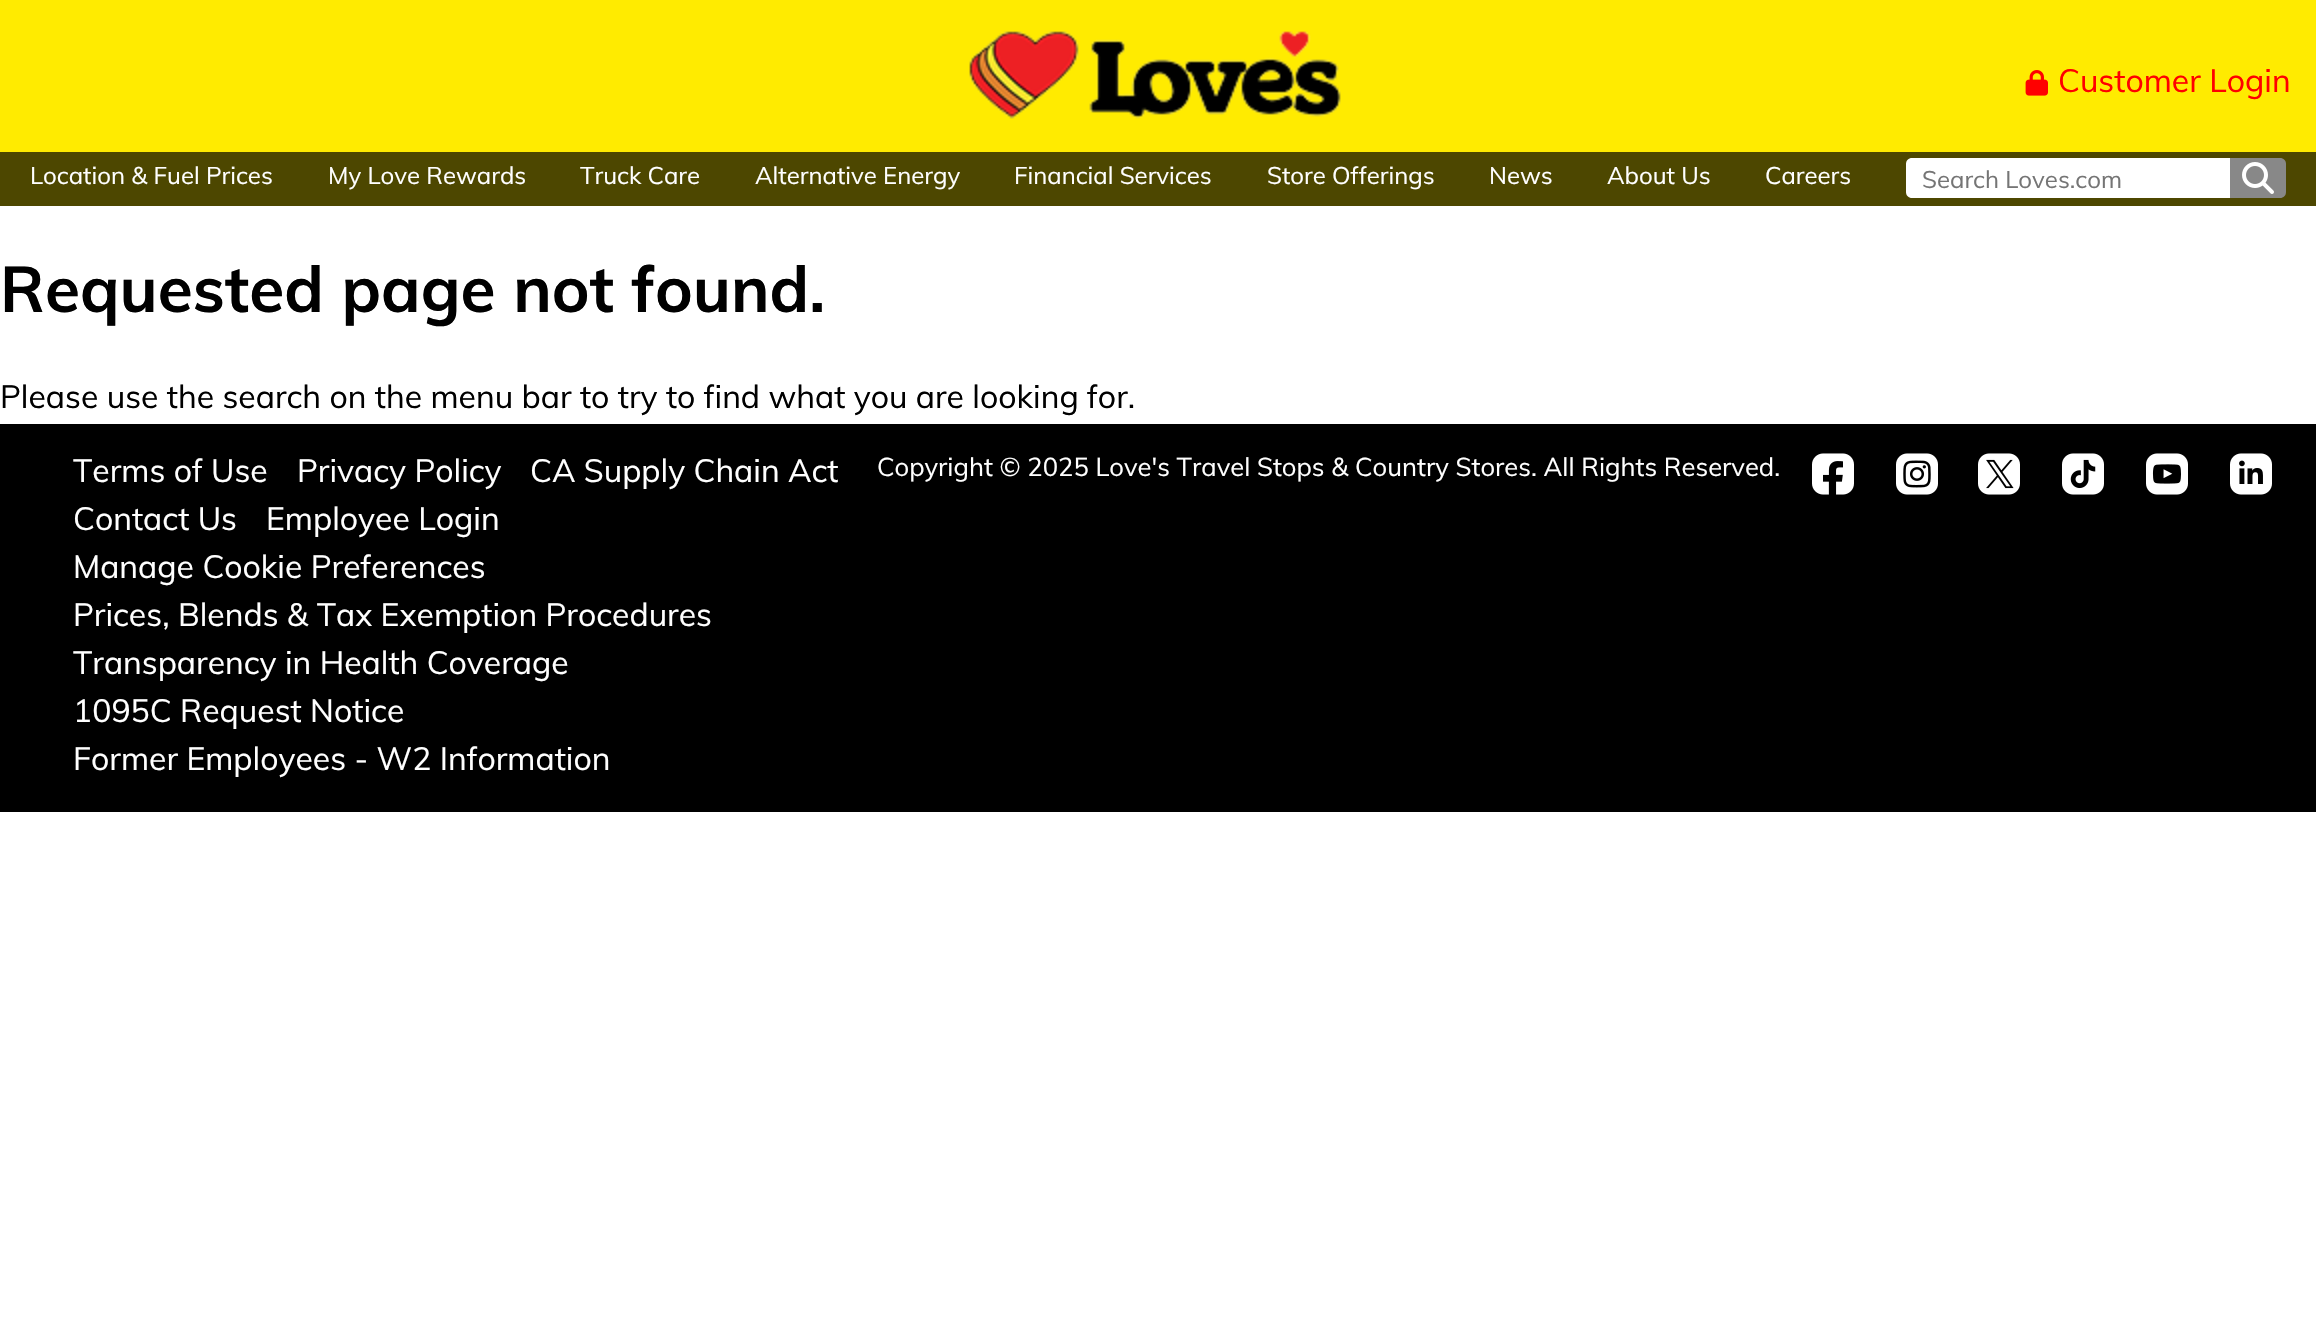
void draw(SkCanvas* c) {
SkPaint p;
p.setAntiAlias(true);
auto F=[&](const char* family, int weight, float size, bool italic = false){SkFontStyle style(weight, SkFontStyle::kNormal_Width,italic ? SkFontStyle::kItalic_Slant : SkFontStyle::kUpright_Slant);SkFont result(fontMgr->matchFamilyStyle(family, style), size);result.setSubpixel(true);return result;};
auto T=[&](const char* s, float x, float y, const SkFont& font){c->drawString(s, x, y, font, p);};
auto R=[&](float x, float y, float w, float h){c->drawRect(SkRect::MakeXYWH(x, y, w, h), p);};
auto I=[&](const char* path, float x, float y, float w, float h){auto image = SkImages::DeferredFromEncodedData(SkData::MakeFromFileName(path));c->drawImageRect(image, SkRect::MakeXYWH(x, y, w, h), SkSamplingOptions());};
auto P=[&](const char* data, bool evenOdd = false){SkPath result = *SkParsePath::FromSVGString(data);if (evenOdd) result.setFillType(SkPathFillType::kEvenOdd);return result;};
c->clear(0xffffffff);
p.setColor(0xffffeb00);
R(0,0,2316,152);
I("1.png",969,31,372,88);
I("2.png",2025,70,23,26);
auto f1 = F("Muli",400,32);
p.setColor(0xffff0000);
T("Customer Login",2058,92,f1);
p.setColor(0xff4d4700);
R(0,152,2316,54);
auto f2 = F("Muli",400,24);
p.setColor(0xffffffff);
T("Location & Fuel Prices",30,184,f2);
T("My Love Rewards",328,184,f2);
T("Truck Care",580,184,f2);
T("Alternative Energy",755,184,f2);
T("Financial Services",1014,184,f2);
T("Store Offerings",1267,184,f2);
T("News",1489,184,f2);
T("About Us",1607,184,f2);
T("Careers",1765,184,f2);
c->drawPath(P("M1912 158h318v40h-318c-3.5 0-6-2.5-6-6v-28c0-3.5 2.5-6 6-6z"),p);
p.setColor(0xff757575);
T("Search Loves.com",1922,188,f2);
p.setColor(0xff888888);
c->drawPath(P("M2230 158h50c3.5 0 6 2.5 6 6v28c0 3.5-2.5 6-6 6h-50z"),p);
I("3.png",2242,162,32,32);
auto f3 = F("Muli",700,64);
p.setColor(0xff000000);
T("Requested page not found.",0,312,f3);
T("Please use the search on the menu bar to try to find what you are looking for.",0,408,f1);
R(0,424,2316,388);
p.setColor(0xffffffff);
T("Terms of Use",73,482,f1);
T("Privacy Policy",297,482,f1);
T("CA Supply Chain Act",530,482,f1);
T("Contact Us",73,530,f1);
T("Employee Login",266,530,f1);
T("Manage Cookie Preferences",73,578,f1);
T("Prices, Blends & Tax Exemption Procedures",73,626,f1);
T("Transparency in Health Coverage",73,674,f1);
T("1095C Request Notice",73,722,f1);
T("Former Employees - W2 Information",73,770,f1);
auto f4 = F("Muli",400,25.6);
T("Copyright © 2025 Love's Travel Stops & Country Stores. All Rights Reserved.",877,476,f4);
I("4.png",1812,453,42,42);
I("5.png",1896,453,42,42);
I("6.png",1978,453,42,42);
I("7.png",2062,453,42,42);
I("8.png",2146,453,42,42);
I("9.png",2230,453,42,42);
}
